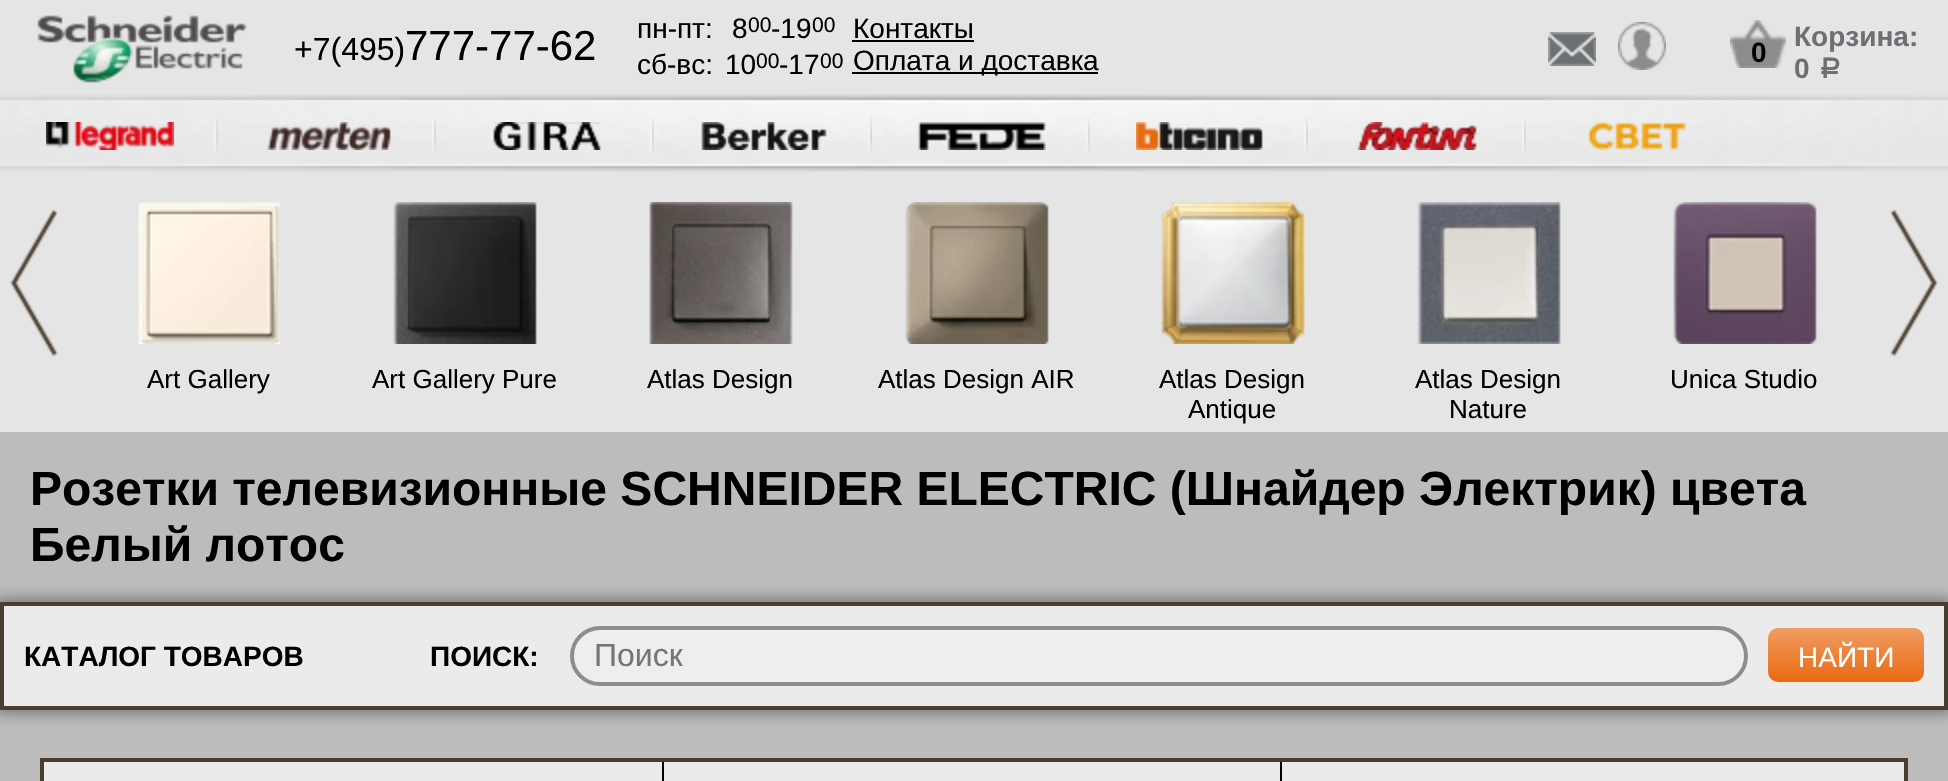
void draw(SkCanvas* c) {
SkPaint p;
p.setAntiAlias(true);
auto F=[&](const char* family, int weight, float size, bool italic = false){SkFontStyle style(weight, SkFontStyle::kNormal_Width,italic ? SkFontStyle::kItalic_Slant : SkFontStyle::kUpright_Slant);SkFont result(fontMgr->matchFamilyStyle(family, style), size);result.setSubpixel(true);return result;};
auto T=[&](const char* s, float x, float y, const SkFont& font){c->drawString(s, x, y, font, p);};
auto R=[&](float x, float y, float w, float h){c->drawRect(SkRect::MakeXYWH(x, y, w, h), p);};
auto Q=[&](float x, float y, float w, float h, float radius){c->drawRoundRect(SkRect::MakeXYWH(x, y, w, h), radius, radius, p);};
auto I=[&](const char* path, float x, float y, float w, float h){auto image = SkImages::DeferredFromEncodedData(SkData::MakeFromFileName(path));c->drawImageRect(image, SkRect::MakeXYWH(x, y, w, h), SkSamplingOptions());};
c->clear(0xffbcbcbc);
p.setColor(0xffe5e5e5);
R(0,0,1948,432);
I("1.png",37,15,210,68);
auto f1 = F("Liberation Sans",400,32);
p.setColor(0xff000000);
T("+7(495)",294,60,f1);
auto f2 = F("Liberation Sans",400,42);
T("777-77-62",405,60,f2);
auto f3 = F("Liberation Sans",400,28);
T("пн-пт:",637,38,f3);
T("8",732,38,f3);
auto f4 = F("Liberation Sans",400,21);
T("00",748,32,f4);
T("-19",771,38,f3);
T("00",812,32,f4);
T("сб-вс:",637,74,f3);
T("10",725,74,f3);
T("00",756,68,f4);
T("-17",779,74,f3);
T("00",820,68,f4);
T("Контакты",853,38,f3);
R(852,40,122,2);
R(852,72,246,2);
T("Оплата и доставка",853,70,f3);
I("2.png",1548,32,48,34);
I("3.png",1618,22,48,48);
I("4.png",1730,20,56,48);
auto f5 = F("Liberation Sans",700,28);
T("0",1751,62,f5);
p.setColor(0xff6c7072);
T("Корзина:",1794,46,f5);
T("0",1794,78,f5);
auto f6 = F("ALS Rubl",700,28);
T("a",1817,78,f6);
I("5.png",0,94,1948,78);
I("6.png",46,122,128,28);
I("7.png",214,118,4,35);
I("8.png",267,122,124,28);
I("9.png",432,117,4,36);
I("10.png",493,122,108,28);
I("11.png",650,116,4,37);
I("12.png",701,122,126,28);
I("13.png",868,116,4,37);
I("14.png",918,122,128,28);
I("15.png",1086,116,4,37);
I("16.png",1136,122,127,28);
I("17.png",1304,116,4,37);
I("18.png",1357,122,120,28);
I("19.png",1522,117,4,36);
I("20.png",1587,122,100,28);
I("21.png",10,210,48,146);
I("22.png",1890,210,48,146);
I("23.png",138,202,143,142);
auto f7 = F("Liberation Sans",400,26);
p.setColor(0xff000000);
T("Art Gallery",147,388,f7);
I("24.png",393,202,144,142);
T("Art Gallery Pure",372,388,f7);
I("25.png",649,202,144,142);
T("Atlas Design",647,388,f7);
I("26.png",905,202,144,142);
T("Atlas Design AIR",878,388,f7);
I("27.png",1161,202,144,142);
T("Atlas Design",1159,388,f7);
T("Antique",1188,418,f7);
I("28.png",1417,202,144,142);
T("Atlas Design",1415,388,f7);
T("Nature",1449,418,f7);
I("29.png",1673,202,144,142);
T("Unica Studio",1670,388,f7);
auto f8 = F("Liberation Sans",700,48);
T("Розетки телевизионные SCHNEIDER ELECTRIC (Шнайдер Электрик) цвета",30,505,f8);
T("Белый лотос",30,561,f8);
p.setColor(0x57000000);
p.setMaskFilter(SkMaskFilter::MakeBlur(kNormal_SkBlurStyle, 6));
c->drawRect(SkRect::MakeXYWH(-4,598,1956,116),p);
p.setMaskFilter(nullptr);
p.setColor(0xffebebeb);
c->drawRect(SkRect::MakeXYWH(2,604,1944,104),p);
p.setStroke(true);
p.setStrokeWidth(4);
p.setColor(0xff493d2d);
c->drawRect(SkRect::MakeXYWH(2,604,1944,104),p);
p.setStroke(false);
p.setColor(0xff000000);
T("КАТАЛОГ ТОВАРОВ",24,666,f5);
T("ПОИСК:",430,666,f5);
p.setColor(0xffeeeeee);
c->drawRoundRect(SkRect::MakeXYWH(572,628,1174,56),28,28,p);
p.setStroke(true);
p.setColor(0xff8b8e90);
c->drawRoundRect(SkRect::MakeXYWH(572,628,1174,56),28,28,p);
p.setStroke(false);
p.setColor(0xff757575);
T("Поиск",594,666,f1);
{
const SkColor colors[] = {0xfff09d63,0xffe96910};
const float stops[] = {0,1};
const SkPoint ends[] = {{1846,628}, {1846,682}};
p.setShader(SkGradientShader::MakeLinear(ends, colors, stops, 2, SkTileMode::kClamp));
p.setAlpha(255);
}
Q(1768,628,156,54,10);
p.setShader(nullptr);
p.setColor(0xffffffff);
T("НАЙТИ",1798,667,f3);
p.setColor(0xffebebeb);
c->drawRect(SkRect::MakeXYWH(42,760,1864,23),p);
p.setStroke(true);
p.setColor(0xff493d2d);
c->drawRect(SkRect::MakeXYWH(42,760,1864,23),p);
p.setStroke(false);
p.setColor(0xff000000);
R(662,762,2,19);
R(1280,762,2,19);
}
